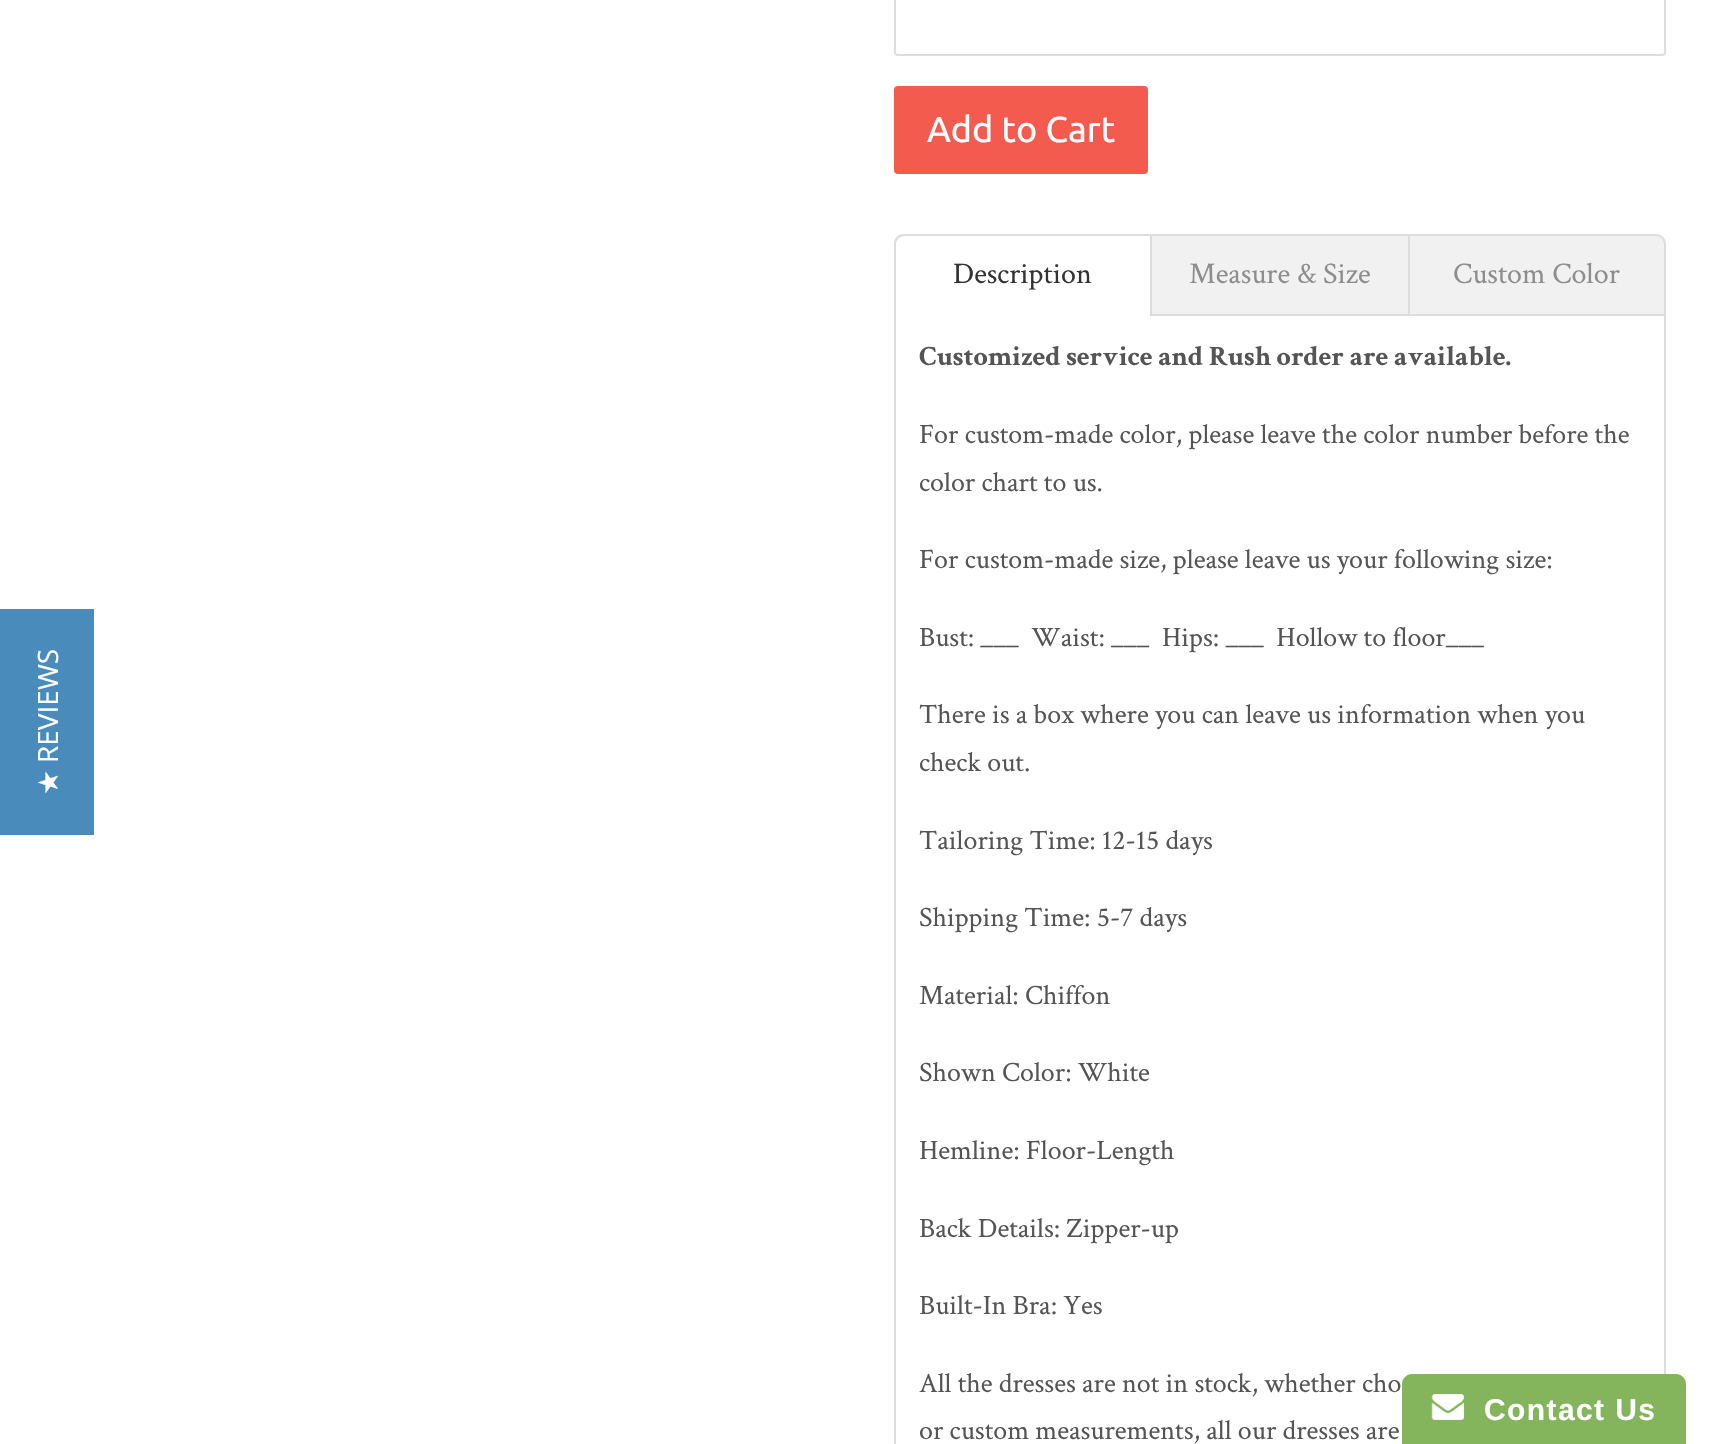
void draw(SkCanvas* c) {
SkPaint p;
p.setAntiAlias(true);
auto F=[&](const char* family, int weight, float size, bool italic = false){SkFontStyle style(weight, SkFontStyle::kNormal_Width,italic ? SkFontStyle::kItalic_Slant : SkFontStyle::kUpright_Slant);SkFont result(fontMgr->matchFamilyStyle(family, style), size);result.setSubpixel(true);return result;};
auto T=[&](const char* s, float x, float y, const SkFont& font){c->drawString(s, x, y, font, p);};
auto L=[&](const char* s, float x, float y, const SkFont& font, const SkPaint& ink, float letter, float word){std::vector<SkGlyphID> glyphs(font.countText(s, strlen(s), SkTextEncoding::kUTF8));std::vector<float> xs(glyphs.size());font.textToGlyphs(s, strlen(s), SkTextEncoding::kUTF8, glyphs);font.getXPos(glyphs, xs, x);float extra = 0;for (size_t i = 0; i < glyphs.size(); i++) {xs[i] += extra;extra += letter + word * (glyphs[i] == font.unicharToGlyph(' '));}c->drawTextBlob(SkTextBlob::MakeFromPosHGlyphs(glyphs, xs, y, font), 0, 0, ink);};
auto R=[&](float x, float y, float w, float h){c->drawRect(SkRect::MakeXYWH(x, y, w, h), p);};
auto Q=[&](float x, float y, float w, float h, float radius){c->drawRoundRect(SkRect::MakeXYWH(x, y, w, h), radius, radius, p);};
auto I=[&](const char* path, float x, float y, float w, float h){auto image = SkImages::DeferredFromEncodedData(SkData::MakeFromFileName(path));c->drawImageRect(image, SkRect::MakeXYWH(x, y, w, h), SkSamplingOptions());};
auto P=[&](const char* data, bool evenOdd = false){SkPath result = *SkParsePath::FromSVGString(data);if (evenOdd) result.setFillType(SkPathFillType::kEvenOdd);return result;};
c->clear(0xffffffff);
p.setColor(0xff498cbc);
R(0,609,94,226);
auto f1 = F("Open Sans",400,28);
p.setColor(0xffffffff);
c->save();
c->rotate(-90,58,763);
T("REVIEWS",58,763,f1);
c->restore();
auto f2 = F("DejaVu Sans",400,28);
c->save();
c->rotate(-90,58,795);
T("★",58,795,f2);
c->restore();
p.setStroke(true);
p.setStrokeWidth(2);
p.setColor(0xffdddddd);
c->drawRoundRect(SkRect::MakeXYWH(895,-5,770,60),3,3,p);
p.setStroke(false);
p.setColor(0xfff45b4f);
Q(894,86,254,88,4);
auto f3 = F("Ubuntu",400,36);
p.setColor(0xffffffff);
T("Add to Cart",927,142,f3);
p.setStroke(true);
p.setColor(0xffdddddd);
c->drawRect(SkRect::MakeXYWH(895,315,770,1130),p);
p.setStroke(false);
p.setColor(0xffffffff);
c->drawPath(P("M904 236h246v80h-254v-72c0-4.5 3.5-8 8-8z"),p);
p.setColor(0xffdddddd);
c->drawPath(P("M904 234h248v82h-258v-72c0-6 4-10 10-10zm0 2h246v80h-254v-72c0-4 4-8 8-8z",true),p);
auto f4 = F("Crimson Text",400,30);
p.setColor(0xff333333);
T("Description",953,283,f4);
p.setColor(0xfff1f1f1);
R(1152,236,256,78);
p.setColor(0xffdddddd);
R(1152,234,256,2);
p.setColor(0xff8d8d8d);
T("Measure & Size",1189,283,f4);
p.setColor(0xfff1f1f1);
c->drawPath(P("M1409 235h247c5 0 9 4 9 9v71h-256z"),p);
p.setStroke(true);
p.setColor(0xffdddddd);
c->drawPath(P("M1409 235h247c5 0 9 4 9 9v71h-256z"),p);
p.setStroke(false);
p.setColor(0xff8d8d8d);
T("Custom Color",1453,283,f4);
auto f5 = F("Crimson Text",700,28);
p.setColor(0xff555555);
T("Customized service and Rush order are available.",919,365,f5);
auto f6 = F("Crimson Text",400,28);
T("For custom-made color, please leave the color number before the",919,443,f6);
T("color chart to us.",919,491,f6);
T("For custom-made size, please leave us your following size:",919,568,f6);
T("Bust: ___  Waist: ___  Hips: ___  Hollow to floor___",919,646,f6);
T("There is a box where you can leave us information when you",919,723,f6);
T("check out.",919,771,f6);
T("Tailoring Time: 12-15 days",919,849,f6);
T("Shipping Time: 5-7 days",919,926,f6);
T("Material: Chiffon",919,1004,f6);
T("Shown Color: White",919,1081,f6);
T("Hemline: Floor-Length",919,1159,f6);
T("Back Details: Zipper-up",919,1237,f6);
T("Built-In Bra: Yes",919,1314,f6);
T("All the dresses are not in stock, whether cho",919,1392,f6);
T("or custom measurements, all our dresses are",919,1439,f6);
p.setColor(0xff84b45b);
c->drawPath(P("M1412 1374h264c5.5 0 10 4.5 10 10v60h-284v-60c0-5.5 4.5-10 10-10z"),p);
I("1.png",1431,1394,34,26);
auto f7 = F("Liberation Sans",700,30);
p.setColor(0xffffffff);
L("Contact Us",1484,1420,f7,p,1.4,0);
}
